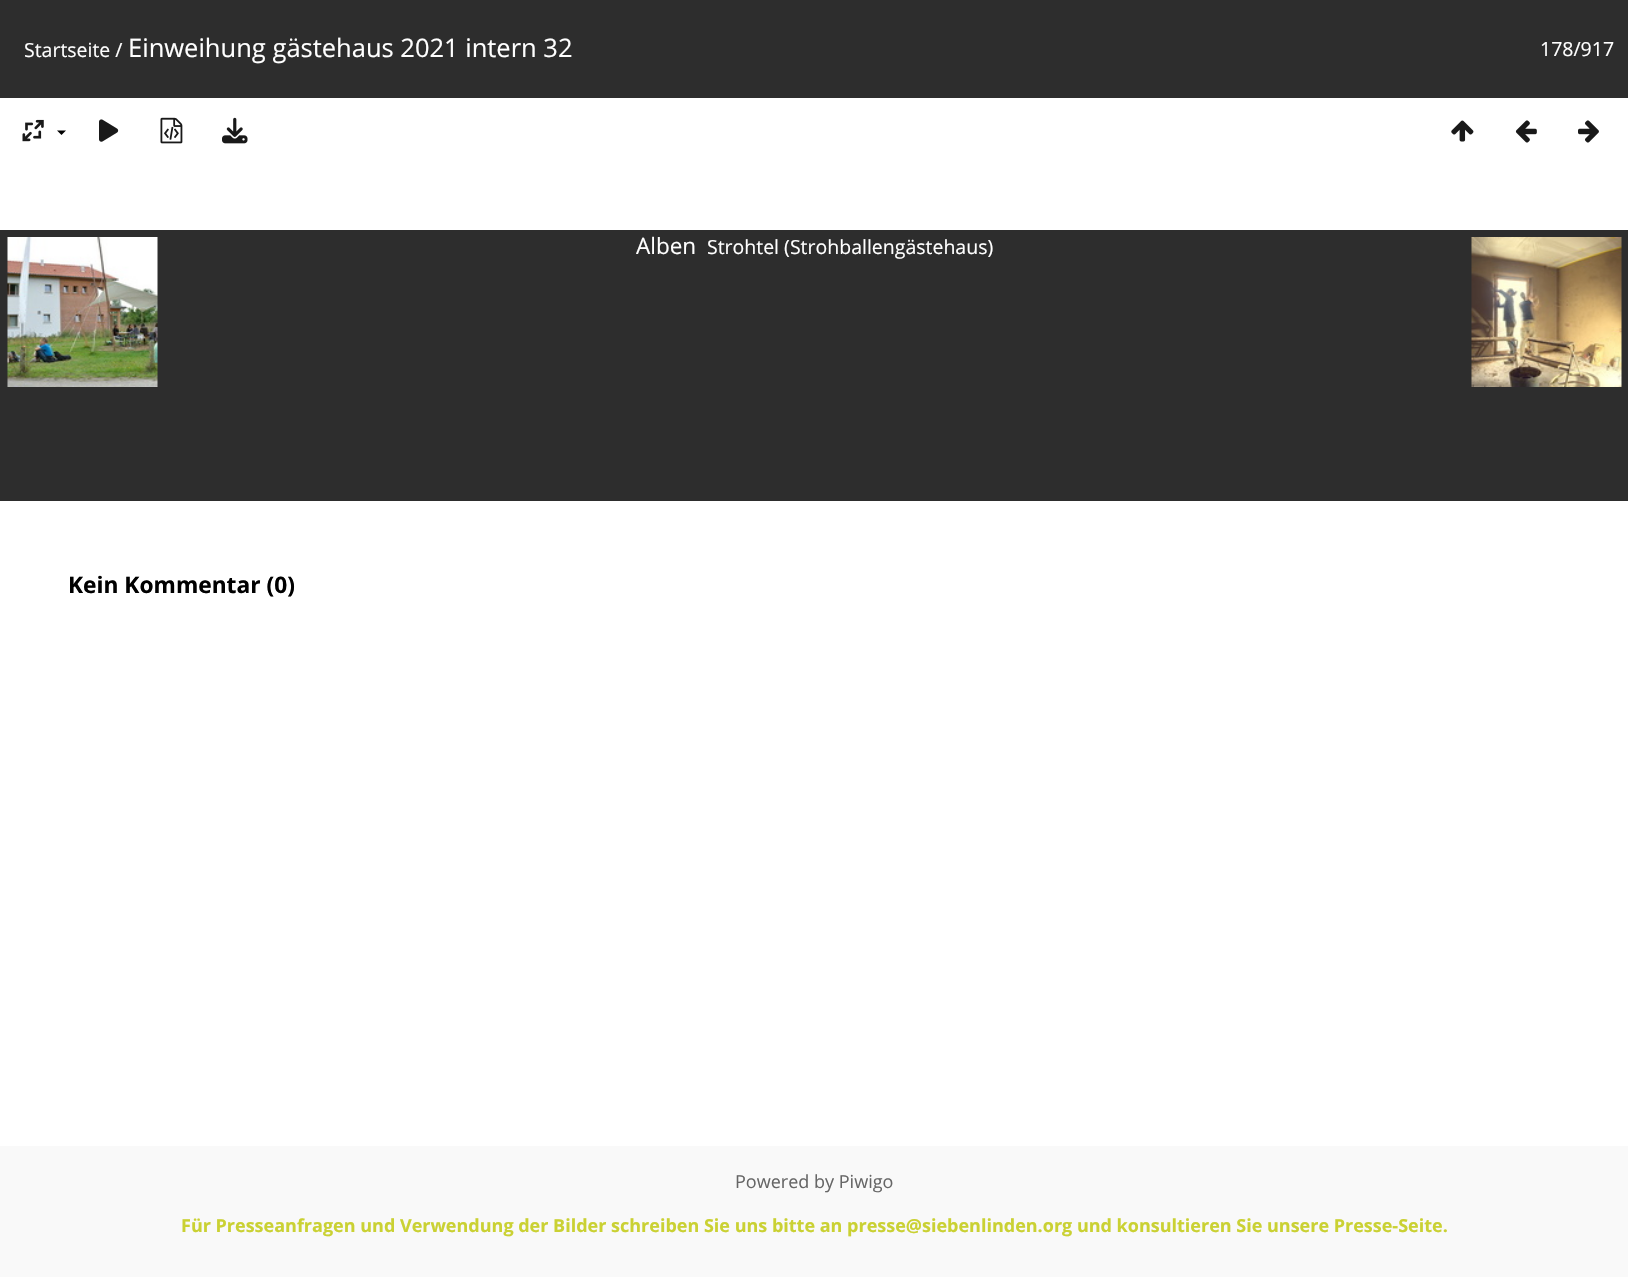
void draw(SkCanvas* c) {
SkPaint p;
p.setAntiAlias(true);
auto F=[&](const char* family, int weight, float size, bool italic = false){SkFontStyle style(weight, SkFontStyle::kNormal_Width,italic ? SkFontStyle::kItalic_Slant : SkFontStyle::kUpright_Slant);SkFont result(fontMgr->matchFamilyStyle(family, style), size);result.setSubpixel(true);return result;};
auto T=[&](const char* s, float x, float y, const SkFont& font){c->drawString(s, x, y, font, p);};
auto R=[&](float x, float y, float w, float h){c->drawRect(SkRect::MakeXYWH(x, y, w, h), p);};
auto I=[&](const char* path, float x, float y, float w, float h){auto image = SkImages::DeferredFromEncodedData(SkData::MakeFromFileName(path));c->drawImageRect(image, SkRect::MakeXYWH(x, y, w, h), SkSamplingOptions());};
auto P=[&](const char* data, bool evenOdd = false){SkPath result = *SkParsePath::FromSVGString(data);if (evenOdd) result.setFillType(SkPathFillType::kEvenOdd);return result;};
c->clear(0xffffffff);
p.setColor(0xff2d2d2d);
R(0,0,1628,98);
auto f1 = F("Open Sans",400,19.5);
p.setColor(0xffffffff);
T("Startseite /",24,57,f1);
auto f2 = F("Open Sans",400,25.5);
T("Einweihung gästehaus 2021 intern 32",128,57,f2);
T("178/917",1540,56,f1);
I("1.png",22,119,22,23);
p.setColor(0xff000000);
c->drawPath(P("M57 130.5h9l-4.5 4.5z"),p);
I("2.png",99,119,20,23);
I("3.png",160,117,23,27);
I("4.png",222,117,26,27);
I("5.png",1451,120,23,22);
I("6.png",1515,120,22,23);
I("7.png",1578,120,21,23);
p.setColor(0xff2d2d2d);
R(0,230,1628,271);
auto f3 = F("Open Sans",400,22.5);
p.setColor(0xffffffff);
T("Alben",636,254,f3);
T("Strohtel (Strohballengästehaus)",707,254,f1);
I("8.png",7,237,151,150);
I("9.png",1471,237,151,150);
auto f4 = F("Open Sans",700,22.75);
p.setColor(0xff000000);
T("Kein Kommentar (0)",68,593,f4);
p.setColor(0xfff9f9f9);
R(0,1146,1628,131);
auto f5 = F("Open Sans",400,18);
p.setColor(0xff666666);
T("Powered by Piwigo",735,1188,f5);
auto f6 = F("Open Sans",700,18);
p.setColor(0xffcad133);
T("Für Presseanfragen und Verwendung der Bilder schreiben Sie uns bitte an presse@siebenlinden.org und konsultieren Sie unsere Presse-Seite.",181,1232,f6);
}
